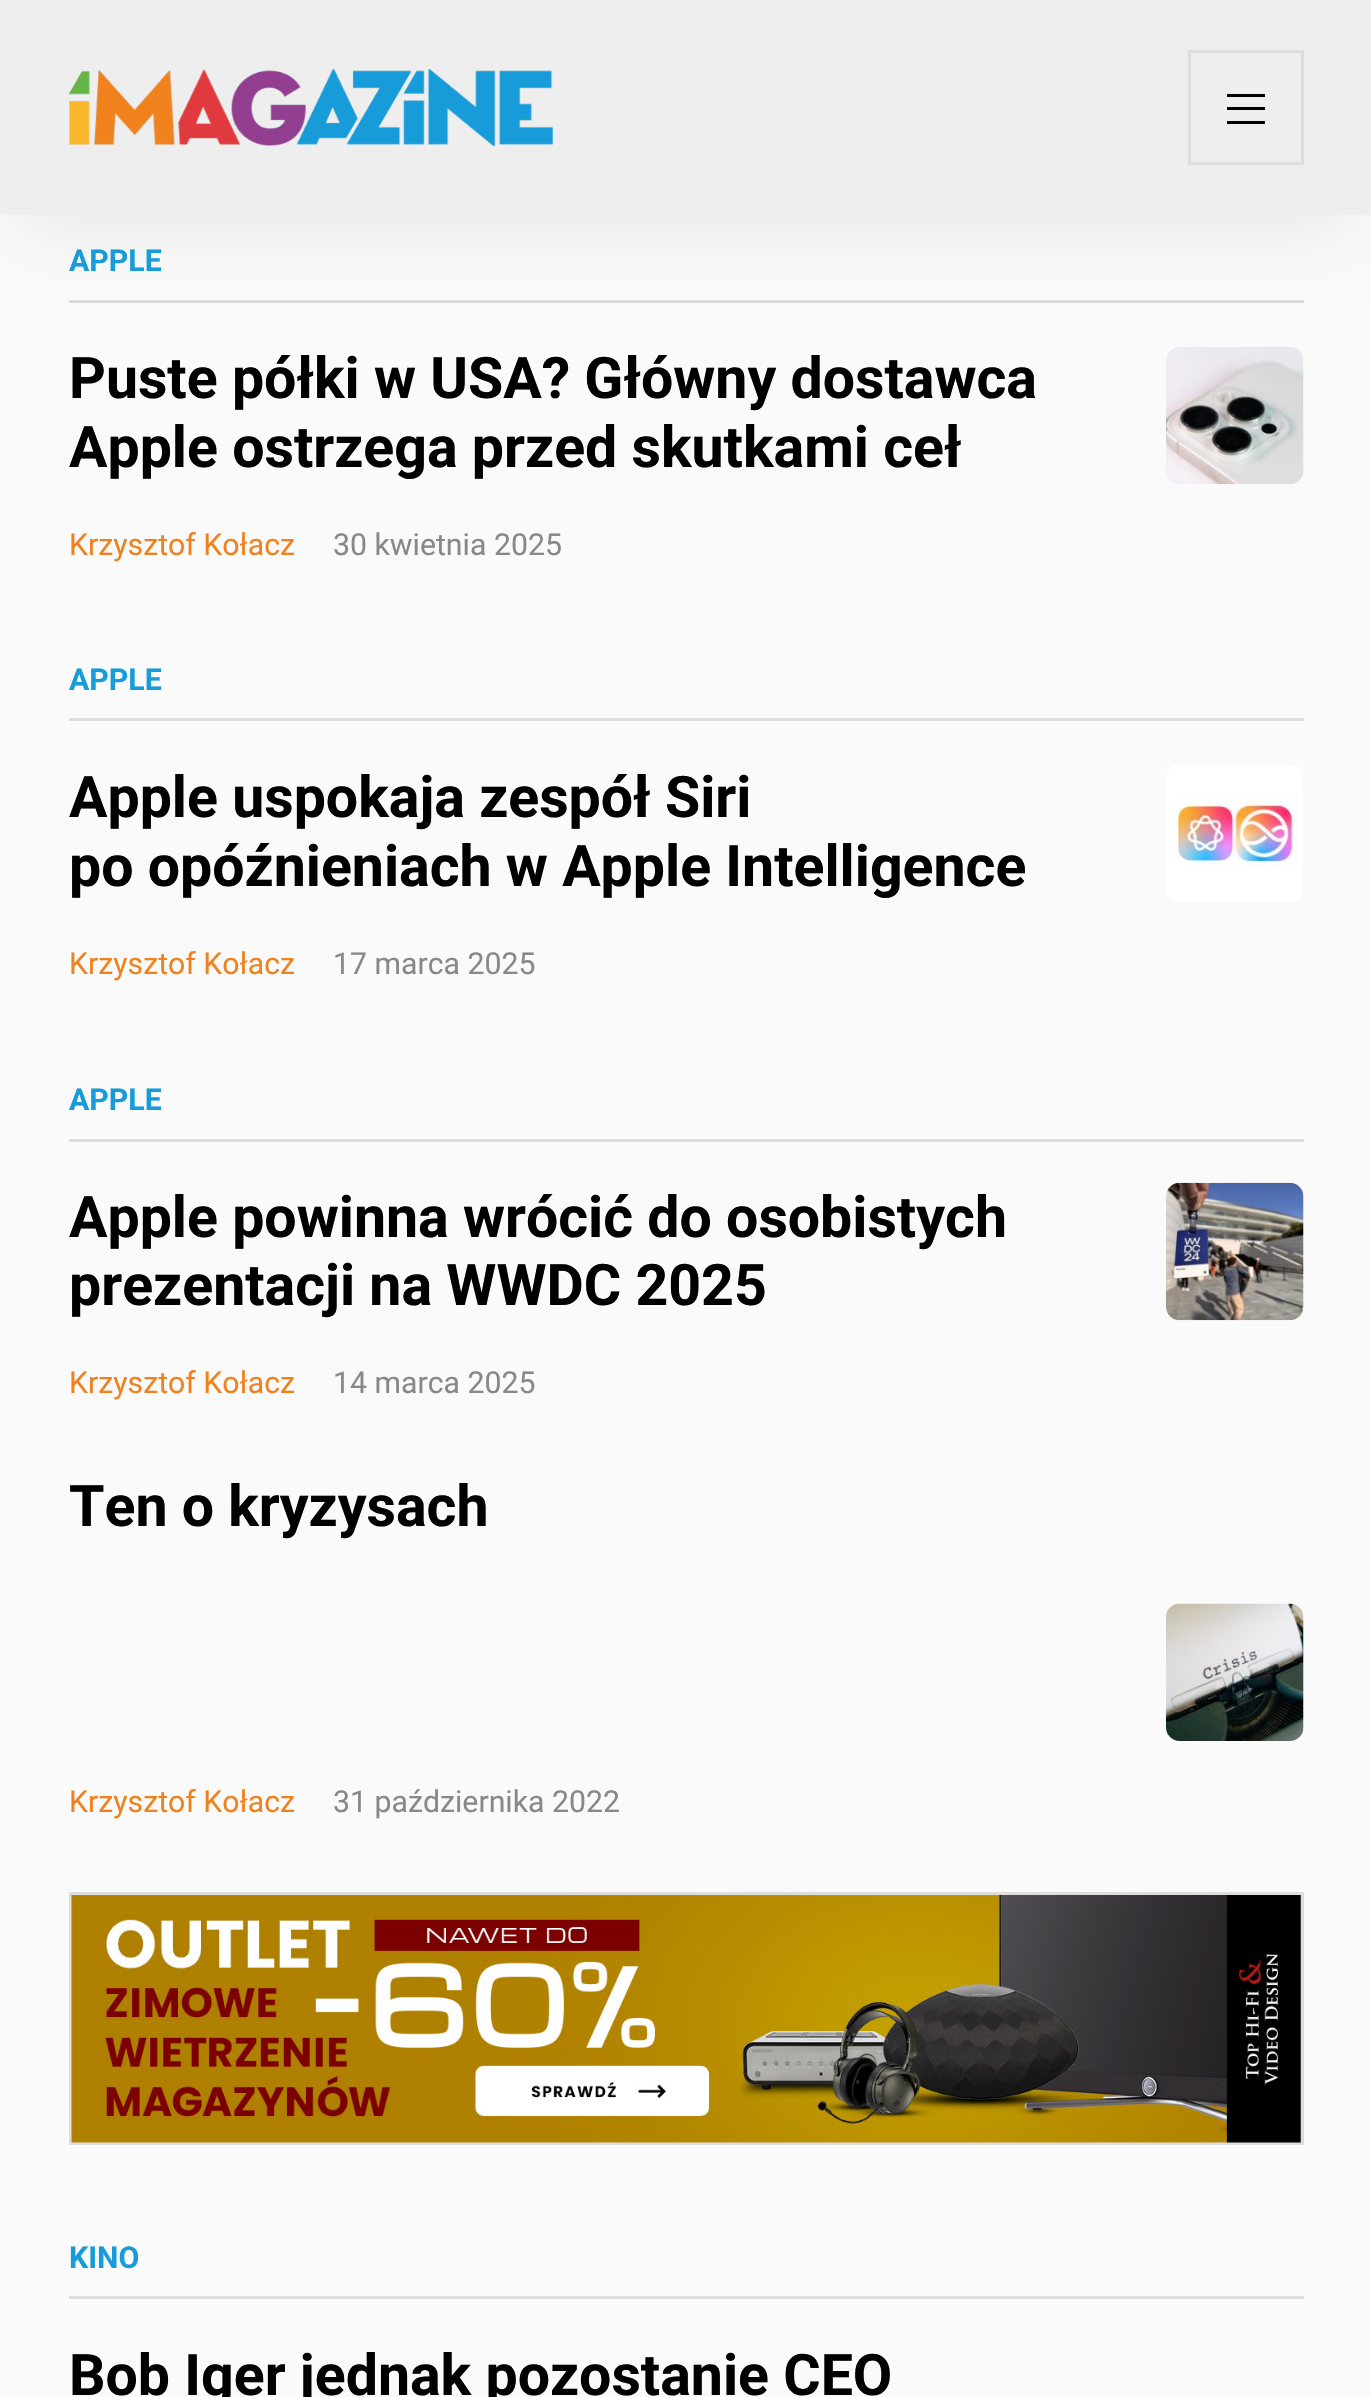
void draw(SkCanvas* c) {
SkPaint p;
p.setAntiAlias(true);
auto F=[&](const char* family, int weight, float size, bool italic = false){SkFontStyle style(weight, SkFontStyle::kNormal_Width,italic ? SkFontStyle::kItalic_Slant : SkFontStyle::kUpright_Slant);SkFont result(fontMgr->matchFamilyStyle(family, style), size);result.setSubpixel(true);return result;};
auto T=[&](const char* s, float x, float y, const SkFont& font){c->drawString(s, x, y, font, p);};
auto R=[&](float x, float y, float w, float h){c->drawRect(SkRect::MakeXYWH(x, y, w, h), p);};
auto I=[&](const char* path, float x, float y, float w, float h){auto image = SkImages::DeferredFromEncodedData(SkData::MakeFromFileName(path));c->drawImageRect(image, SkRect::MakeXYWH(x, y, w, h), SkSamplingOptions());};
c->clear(0xfffafafa);
p.setColor(0xffdddddd);
R(69,300,1235,3);
p.setColor(0x1a000000);
p.setMaskFilter(SkMaskFilter::MakeBlur(kNormal_SkBlurStyle, 41));
c->drawRect(SkRect::MakeXYWH(28,55,1317,160),p);
p.setMaskFilter(nullptr);
p.setColor(0xffeeeeee);
R(0,0,1371,215);
I("1.png",69,69,484,77);
p.setStroke(true);
p.setStrokeWidth(3);
p.setColor(0xffdddddd);
c->drawRect(SkRect::MakeXYWH(1189.5,51.5,113,112),p);
p.setStroke(false);
p.setColor(0xff000000);
R(1227,121,38,3);
R(1227,94,38,3);
R(1227,107,38,3);
auto f1 = F("Roboto",700,30.25);
p.setColor(0xff179cd9);
T("APPLE",69,271,f1);
auto f2 = F("Roboto",700,57.25);
p.setColor(0xff000000);
T("Puste półki w USA? Główny dostawca",69,398,f2);
T("Apple ostrzega przed skutkami ceł",69,467,f2);
auto f3 = F("Roboto",400,30.25);
p.setColor(0xfff0821e);
T("Krzysztof Kołacz",69,555,f3);
p.setColor(0xff888888);
T("30 kwietnia 2025",333,555,f3);
I("2.png",1166,347,138,137);
p.setColor(0xffdddddd);
R(69,718,1235,3);
p.setColor(0xff179cd9);
T("APPLE",69,690,f1);
p.setColor(0xff000000);
T("Apple uspokaja zespół Siri",69,817,f2);
T("po opóźnieniach w Apple Intelligence",69,886,f2);
p.setColor(0xfff0821e);
T("Krzysztof Kołacz",69,974,f3);
p.setColor(0xff888888);
T("17 marca 2025",333,974,f3);
I("3.png",1166,765,137,137);
p.setColor(0xffdddddd);
R(69,1139,1235,3);
p.setColor(0xff179cd9);
T("APPLE",69,1110,f1);
p.setColor(0xff000000);
T("Apple powinna wrócić do osobistych",69,1237,f2);
T("prezentacji na WWDC 2025",69,1305,f2);
p.setColor(0xfff0821e);
T("Krzysztof Kołacz",69,1393,f3);
p.setColor(0xff888888);
T("14 marca 2025",333,1393,f3);
I("4.png",1166,1182,138,139);
p.setColor(0xff000000);
T("Ten o kryzysach",69,1526,f2);
p.setColor(0xfff0821e);
T("Krzysztof Kołacz",69,1812,f3);
p.setColor(0xff888888);
T("31 października 2022",333,1812,f3);
I("5.png",1166,1603,138,138);
p.setStroke(true);
p.setColor(0xffdddddd);
c->drawRect(SkRect::MakeXYWH(70.5,1893.5,1232,250),p);
I("6.png",71,1895,1230,248);
p.setStroke(false);
R(69,2296,1235,3);
p.setColor(0xff179cd9);
T("KINO",69,2268,f1);
p.setColor(0xff000000);
T("Bob Iger jednak pozostanie CEO",69,2395,f2);
}
